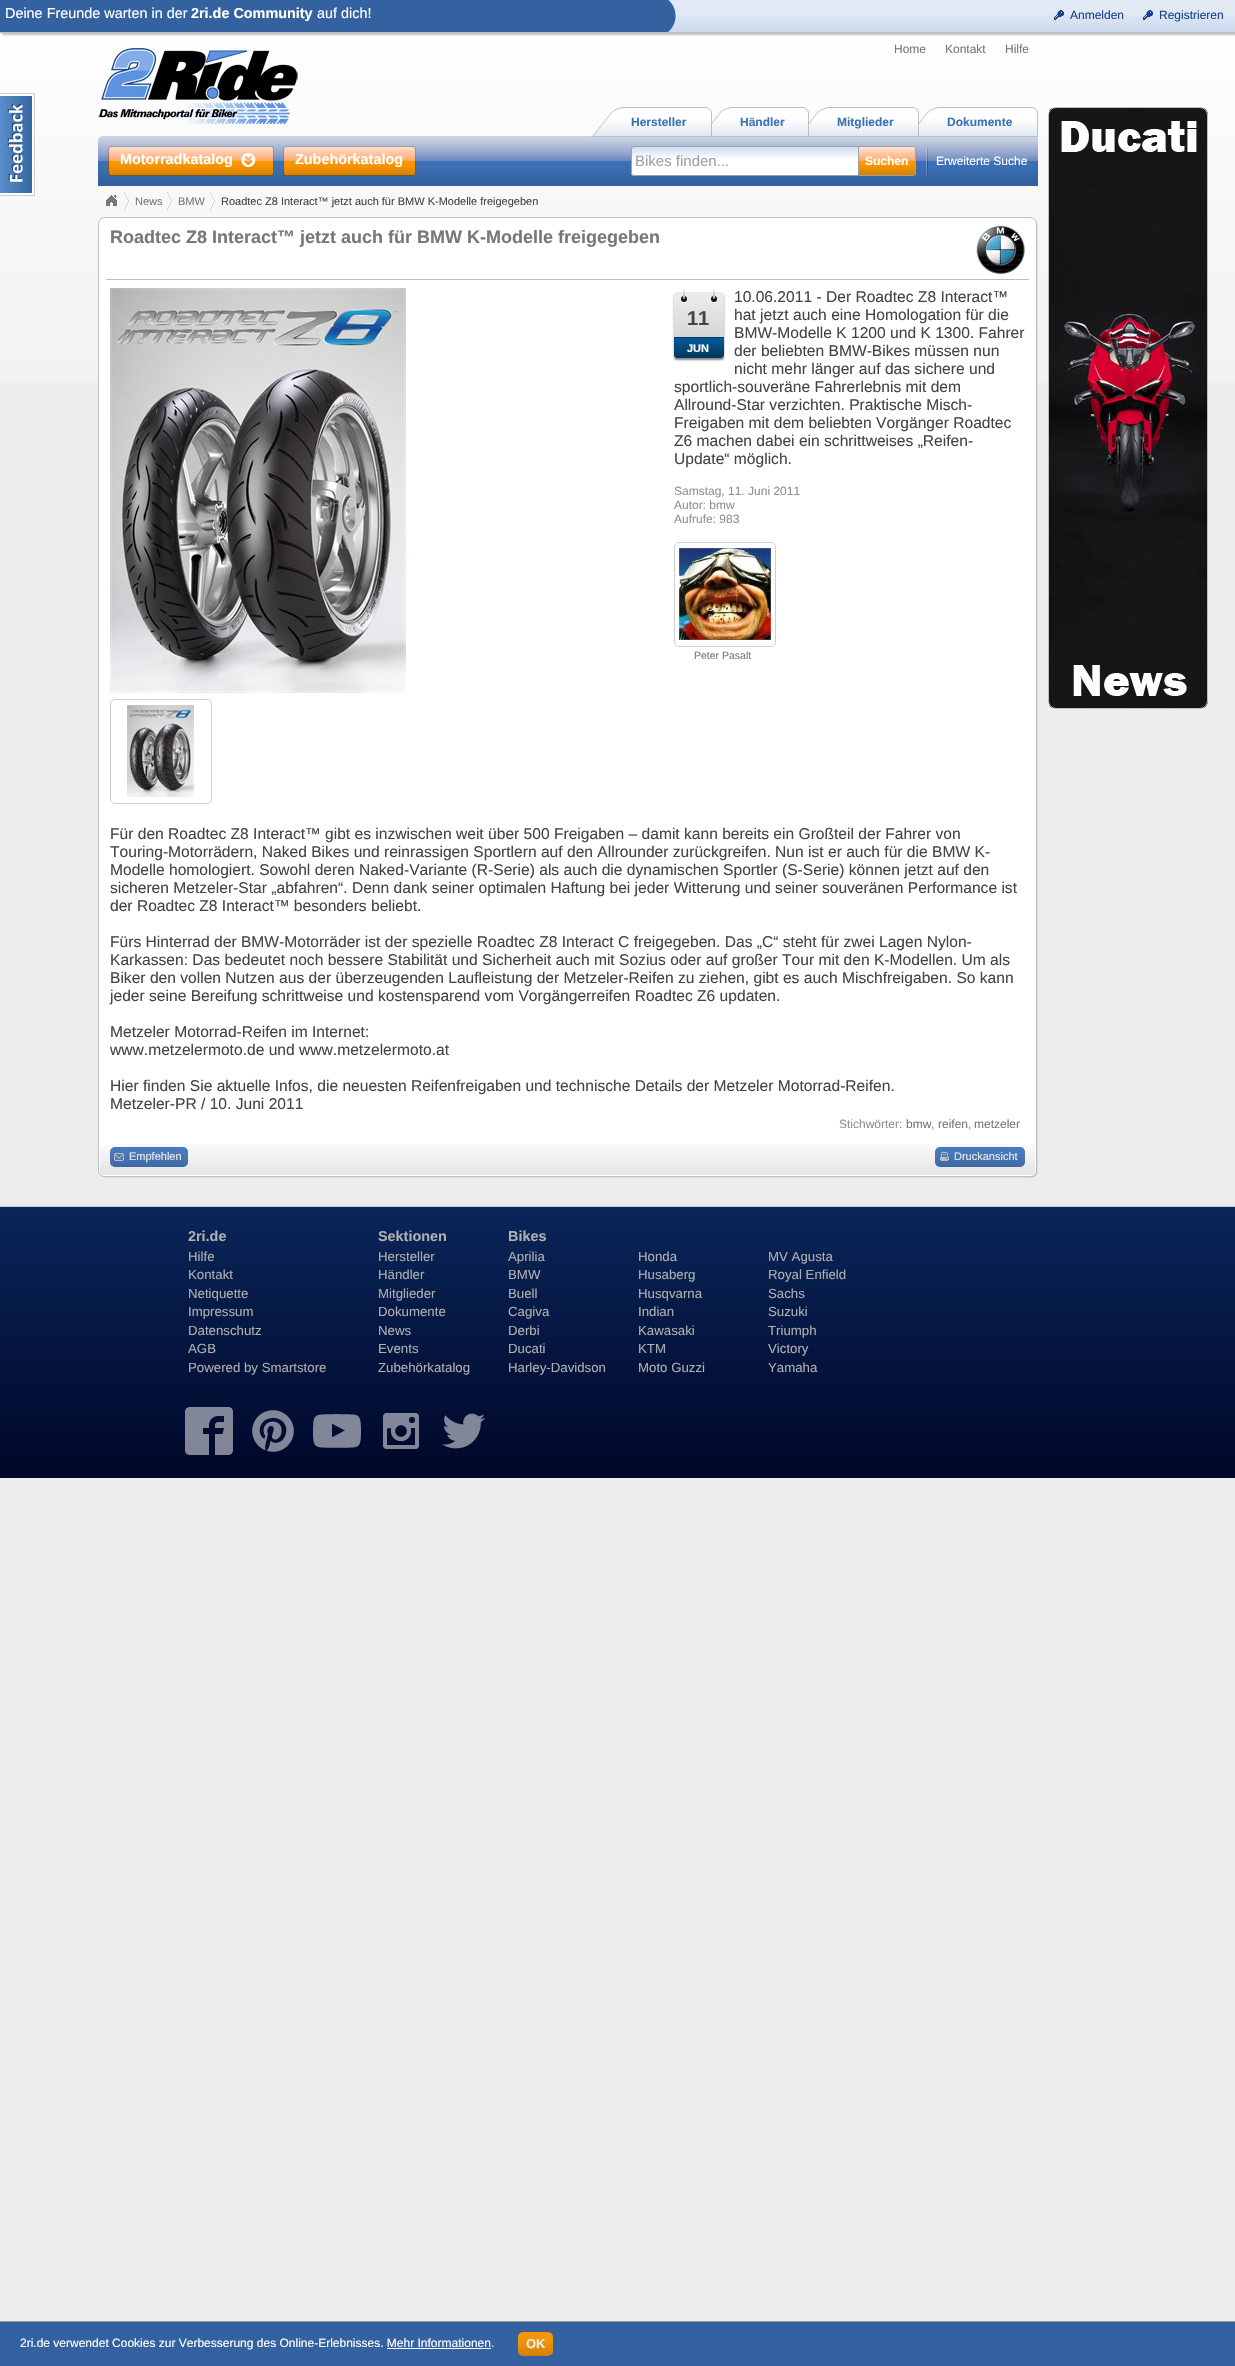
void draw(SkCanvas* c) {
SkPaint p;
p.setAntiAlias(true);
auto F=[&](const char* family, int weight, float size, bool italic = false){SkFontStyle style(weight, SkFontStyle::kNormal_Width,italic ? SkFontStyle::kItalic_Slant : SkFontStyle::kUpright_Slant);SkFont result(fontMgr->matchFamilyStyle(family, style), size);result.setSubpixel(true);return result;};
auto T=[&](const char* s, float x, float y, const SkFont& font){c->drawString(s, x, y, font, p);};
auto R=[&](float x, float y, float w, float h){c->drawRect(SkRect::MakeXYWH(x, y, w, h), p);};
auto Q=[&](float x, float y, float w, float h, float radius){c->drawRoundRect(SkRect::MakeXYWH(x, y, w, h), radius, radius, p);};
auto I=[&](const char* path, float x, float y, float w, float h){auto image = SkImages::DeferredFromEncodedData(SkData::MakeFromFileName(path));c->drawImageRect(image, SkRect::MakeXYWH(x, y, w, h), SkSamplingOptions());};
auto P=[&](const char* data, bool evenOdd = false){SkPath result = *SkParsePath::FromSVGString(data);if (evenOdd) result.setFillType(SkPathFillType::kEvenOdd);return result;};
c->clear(0xffededed);
I("1.png",0,33,1235,350);
p.setColor(0xffbebebe);
p.setMaskFilter(SkMaskFilter::MakeBlur(kNormal_SkBlurStyle, 1));
c->drawRect(SkRect::MakeXYWH(2,2,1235,33),p);
p.setMaskFilter(nullptr);
p.setColor(0xffe1e9f4);
R(668,0,567,15);
I("2.png",668,15,567,17);
p.setColor(0xffbebebe);
R(0,32,4,1);
p.setColor(0xff34619f);
R(0,0,667,32);
auto f1 = F("Liberation Sans",400,14.4);
p.setColor(0xffffffff);
T("Deine Freunde warten in der",5,18,f1);
auto f2 = F("Liberation Sans",700,14.4);
T("2ri.de Community",191,18,f2);
T("auf dich!",317,18,f1);
I("3.png",667,0,9,32);
I("4.png",1054,10,10,10);
auto f3 = F("Liberation Sans",400,12);
p.setColor(0xff15428b);
T("Anmelden",1070,19,f3);
I("4.png",1143,10,10,10);
T("Registrieren",1159,19,f3);
I("5.png",0,93,35,103);
I("6.png",98,48,200,76);
p.setColor(0xff777777);
T("Home",894,53,f3);
T("Kontakt",945,53,f3);
T("Hilfe",1005,53,f3);
I("13.png",98,136,940,50);
I("7.png",591,107,116,30);
auto f4 = F("Liberation Sans",700,12);
p.setColor(0xff3d71b8);
T("Hersteller",631,126,f4);
I("9.png",707,107,97,30);
I("8.png",707,107,5,29);
T("Händler",740,126,f4);
I("10.png",804,107,110,30);
I("8.png",804,107,5,29);
T("Mitglieder",837,126,f4);
I("11.png",914,107,119,30);
I("8.png",914,107,5,29);
T("Dokumente",947,126,f4);
I("12.png",1033,107,5,30);
I("14.png",108,146,166,30);
p.setColor(0xffffffff);
T("Motorradkatalog",120,164,f2);
I("15.png",241,153,15,14);
I("16.png",283,146,133,30);
T("Zubehörkatalog",295,164,f2);
c->drawPath(P("M634 146h224v30h-224c-1.5 0-3-1.5-3-3v-24c0-1.5 1.5-3 3-3z"),p);
I("17.png",631,147,227,11);
p.setColor(0xffa0a0a0);
c->drawPath(P("M634 146h224v30h-224c-2 0-3-1-3-3v-24c0-2 1-3 3-3zm0 1h224v28h-224c-1 0-2-1-2-2v-24c0-1 1-2 2-2z",true),p);
auto f5 = F("Liberation Sans",400,15);
T("Bikes finden...",635,166,f5);
I("18.png",859,147,57,28);
p.setStroke(true);
p.setStrokeWidth(1);
c->drawPath(P("M858.5 146.5h54.5c1.5 0 2.5 1 2.5 2.5v24c0 1.5-1 2.5-2.5 2.5h-54.5z"),p);
p.setStroke(false);
p.setColor(0xffffffff);
T("Suchen",865,165,f4);
I("19.png",926,146,2,30);
T("Erweiterte Suche",936,165,f3);
I("20.png",1049,108,159,600);
p.setStroke(true);
p.setColor(0xffbebebe);
c->drawRoundRect(SkRect::MakeXYWH(1048.5,107.5,159,601),7.5,7.5,p);
I("21.png",124,191,5,20);
I("22.png",106,195,11,11);
I("21.png",167,191,5,20);
auto f6 = F("Liberation Sans",400,11);
p.setStroke(false);
p.setColor(0xff777777);
T("News",135,205,f6);
I("21.png",210,191,5,20);
T("BMW",178,205,f6);
p.setColor(0xff444444);
T("Roadtec Z8 Interact™ jetzt auch für BMW K-Modelle freigegeben",221,205,f6);
I("23.png",104,217,934,6);
I("24.png",98,217,6,10);
I("25.png",99,223,939,949);
p.setColor(0xffbebebe);
R(98,227,1,945);
I("26.png",100,1144,935,28);
R(106,279,923,1);
auto f7 = F("Liberation Sans",700,18);
p.setColor(0xff777777);
T("Roadtec Z8 Interact™ jetzt auch für BMW K-Modelle freigegeben",110,243,f7);
I("27.png",976,225,49,50);
I("28.png",110,288,296,405);
auto f8 = F("Liberation Sans",400,15.6);
p.setColor(0xff444444);
T("10.06.2011 - Der Roadtec Z8 Interact™",734,302,f8);
p.setColor(0xff888888);
p.setMaskFilter(SkMaskFilter::MakeBlur(kNormal_SkBlurStyle, 1));
c->drawRoundRect(SkRect::MakeXYWH(674,294,50,66),3,3,p);
p.setMaskFilter(nullptr);
{
const SkColor colors[] = {0xffededef,0xffcccccc};
const float stops[] = {0,1};
const SkPoint ends[] = {{699,292}, {699,358}};
p.setShader(SkGradientShader::MakeLinear(ends, colors, stops, 2, SkTileMode::kClamp));
p.setAlpha(255);
}
Q(674,292,50,66,3);
p.setShader(nullptr);
p.setColor(0xffffffff);
p.setMaskFilter(SkMaskFilter::MakeBlur(kNormal_SkBlurStyle, .5));
c->drawRoundRect(SkRect::MakeXYWH(681,297,6,6),3,3,p);
p.setMaskFilter(nullptr);
p.setColor(0xff111111);
c->drawCircle(684,299,3,p);
p.setColor(0xffffffff);
p.setMaskFilter(SkMaskFilter::MakeBlur(kNormal_SkBlurStyle, .5));
c->drawRoundRect(SkRect::MakeXYWH(711,297,6,6),3,3,p);
p.setMaskFilter(nullptr);
p.setColor(0xff111111);
c->drawCircle(714,299,3,p);
auto f9 = F("Liberation Sans",700,20);
p.setColor(0xff444444);
T("11",687,325,f9);
{
const SkColor colors[] = {0xff04599a,0xff00365a};
const float stops[] = {0,1};
const SkPoint ends[] = {{699,338}, {699,358}};
p.setShader(SkGradientShader::MakeLinear(ends, colors, stops, 2, SkTileMode::kClamp));
p.setAlpha(255);
}
c->drawPath(P("M674 338h50v17c0 1.5-1.5 3-3 3h-44c-1.5 0-3-1.5-3-3z"),p);
p.setShader(nullptr);
p.setColor(0xff00365a);
R(674,337,50,1);
{
const SkColor colors[] = {0xfff1f1f1,0xffaaaaaa};
const float stops[] = {0,1};
const SkPoint ends[] = {{684,289}, {684,299}};
p.setShader(SkGradientShader::MakeLinear(ends, colors, stops, 2, SkTileMode::kClamp));
p.setAlpha(255);
}
Q(683,289,2,10,1);
{
const SkColor colors[] = {0xfff1f1f1,0xffaaaaaa};
const float stops[] = {0,1};
const SkPoint ends[] = {{714,289}, {714,299}};
p.setShader(SkGradientShader::MakeLinear(ends, colors, stops, 2, SkTileMode::kClamp));
p.setAlpha(255);
}
Q(713,289,2,10,1);
auto f10 = F("Liberation Sans",700,11);
p.setShader(nullptr);
p.setColor(0xffffffff);
T("JUN",687,352,f10);
p.setColor(0xff444444);
T("hat jetzt auch eine Homologation für die",734,320,f8);
T("BMW-Modelle K 1200 und K 1300. Fahrer",734,338,f8);
T("der beliebten BMW-Bikes müssen nun",734,356,f8);
T("nicht mehr länger auf das sichere und",734,374,f8);
T("sportlich-souveräne Fahrerlebnis mit dem",674,392,f8);
T("Allround-Star verzichten. Praktische Misch-",674,410,f8);
T("Freigaben mit dem beliebten Vorgänger Roadtec",674,428,f8);
T("Z6 machen dabei ein schrittweises „Reifen-",674,446,f8);
T("Update“ möglich.",674,464,f8);
p.setColor(0xff909090);
T("Samstag, 11. Juni 2011",674,495,f3);
T("Autor: bmw",674,509,f3);
T("Aufrufe: 983",674,523,f3);
p.setStroke(true);
p.setColor(0xffcfcfcf);
c->drawRoundRect(SkRect::MakeXYWH(674.5,542.5,101,104),4.5,4.5,p);
I("29.png",679,548,92,92);
auto f11 = F("Liberation Sans",400,10.5);
p.setStroke(false);
p.setColor(0xff777777);
T("Peter Pasalt",694,659,f11);
p.setStroke(true);
p.setColor(0xffcfcfcf);
c->drawRoundRect(SkRect::MakeXYWH(110.5,699.5,101,104),4.5,4.5,p);
I("30.png",127,705,67,92);
p.setStroke(false);
p.setColor(0xff444444);
T("Für den Roadtec Z8 Interact™ gibt es inzwischen weit über 500 Freigaben – damit kann bereits ein Großteil der Fahrer von",110,839,f8);
T("Touring-Motorrädern, Naked Bikes und reinrassigen Sportlern auf den Allrounder zurückgreifen. Nun ist er auch für die BMW K-",110,857,f8);
T("Modelle homologiert. Sowohl deren Naked-Variante (R-Serie) als auch die dynamischen Sportler (S-Serie) können jetzt auf den",110,875,f8);
T("sicheren Metzeler-Star „abfahren“. Denn dank seiner optimalen Haftung bei jeder Witterung und seiner souveränen Performance ist",110,893,f8);
T("der Roadtec Z8 Interact™ besonders beliebt.",110,911,f8);
T("Fürs Hinterrad der BMW-Motorräder ist der spezielle Roadtec Z8 Interact C freigegeben. Das „C“ steht für zwei Lagen Nylon-",110,947,f8);
T("Karkassen: Das bedeutet noch bessere Stabilität und Sicherheit auch mit Sozius oder auf großer Tour mit den K-Modellen. Um als",110,965,f8);
T("Biker den vollen Nutzen aus der überzeugenden Laufleistung der Metzeler-Reifen zu ziehen, gibt es auch Mischfreigaben. So kann",110,983,f8);
T("jeder seine Bereifung schrittweise und kostensparend vom Vorgängerreifen Roadtec Z6 updaten.",110,1001,f8);
T("Metzeler Motorrad-Reifen im Internet:",110,1037,f8);
T("www.metzelermoto.de und www.metzelermoto.at",110,1055,f8);
T("Hier finden Sie aktuelle Infos, die neuesten Reifenfreigaben und technische Details der Metzeler Motorrad-Reifen.",110,1091,f8);
T("Metzeler-PR / 10. Juni 2011",110,1109,f8);
p.setColor(0xff909090);
T("Stichwörter:",839,1128,f3);
p.setColor(0xff777777);
T("bmw",906,1128,f3);
p.setColor(0xff909090);
T(",",931,1128,f3);
p.setColor(0xff777777);
T("reifen",938,1128,f3);
p.setColor(0xff909090);
T(",",968,1128,f3);
p.setColor(0xff777777);
T("metzeler",974,1128,f3);
p.setColor(0xff4578bd);
Q(110,1147,78,20,5);
I("31.png",110,1148,78,19);
I("32.png",114,1153,10,8);
p.setColor(0xffe9e9e9);
T("Empfehlen",129,1160,f6);
p.setColor(0xff4578bd);
Q(935,1147,90,20,5);
I("33.png",935,1148,90,19);
I("34.png",940,1152,9,9);
p.setColor(0xffe9e9e9);
T("Druckansicht",954,1160,f6);
I("35.png",104,1172,934,6);
I("36.png",98,1172,6,6);
p.setColor(0xff0a255a);
p.setMaskFilter(SkMaskFilter::MakeBlur(kNormal_SkBlurStyle, .5));
c->drawRect(SkRect::MakeXYWH(0,1207,1235,270),p);
p.setMaskFilter(nullptr);
{
const SkColor colors[] = {0xff0a255a,0xff000728};
const float stops[] = {0,1};
const SkPoint ends[] = {{618,1208}, {618,1478}};
p.setShader(SkGradientShader::MakeLinear(ends, colors, stops, 2, SkTileMode::kClamp));
p.setAlpha(255);
}
R(0,1208,1235,270);
p.setShader(nullptr);
p.setColor(0xffafafaf);
T("2ri.de",188,1241,f2);
auto f12 = F("Liberation Sans",400,13.25);
T("Hilfe",188,1261,f12);
T("Kontakt",188,1279,f12);
T("Netiquette",188,1298,f12);
T("Impressum",188,1316,f12);
T("Datenschutz",188,1335,f12);
T("AGB",188,1353,f12);
T("Powered by Smartstore",188,1372,f12);
T("Sektionen",378,1241,f2);
T("Hersteller",378,1261,f12);
T("Händler",378,1279,f12);
T("Mitglieder",378,1298,f12);
T("Dokumente",378,1316,f12);
T("News",378,1335,f12);
T("Events",378,1353,f12);
T("Zubehörkatalog",378,1372,f12);
T("Bikes",508,1241,f2);
T("Aprilia",508,1261,f12);
T("BMW",508,1279,f12);
T("Buell",508,1298,f12);
T("Cagiva",508,1316,f12);
T("Derbi",508,1335,f12);
T("Ducati",508,1353,f12);
T("Harley-Davidson",508,1372,f12);
T("Honda",638,1261,f12);
T("Husaberg",638,1279,f12);
T("Husqvarna",638,1298,f12);
T("Indian",638,1316,f12);
T("Kawasaki",638,1335,f12);
T("KTM",638,1353,f12);
T("Moto Guzzi",638,1372,f12);
T("MV Agusta",768,1261,f12);
T("Royal Enfield",768,1279,f12);
T("Sachs",768,1298,f12);
T("Suzuki",768,1316,f12);
T("Triumph",768,1335,f12);
T("Victory",768,1353,f12);
T("Yamaha",768,1372,f12);
I("37.png",185,1407,48,48);
I("38.png",252,1410,42,42);
I("39.png",313,1414,48,34);
I("40.png",382,1413,37,36);
I("41.png",442,1413,43,36);
p.setColor(0xff34619f);
R(0,2322,1235,44);
p.setColor(0xff999999);
R(0,2321,1235,1);
p.setColor(0xffffffff);
T("2ri.de verwendet Cookies zur Verbesserung des Online-Erlebnisses. Mehr Informationen.",20,2347,f3);
p.setColor(0xfff79400);
Q(518,2332,35,24,5);
I("42.png",518,2333,35,23);
auto f13 = F("Liberation Sans",700,13);
p.setColor(0xffe9e9e9);
T("OK",526,2348,f13);
p.setColor(0xffffffff);
R(387,2348,104,1);
}
